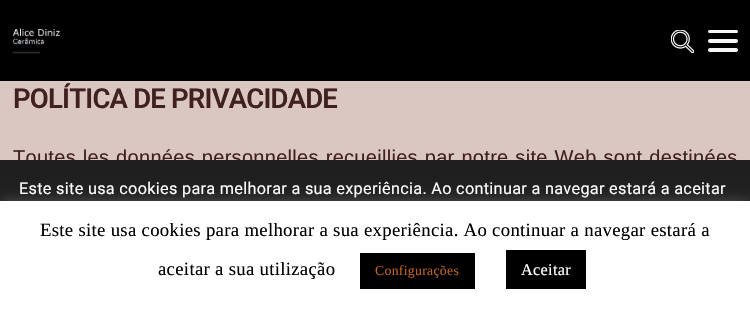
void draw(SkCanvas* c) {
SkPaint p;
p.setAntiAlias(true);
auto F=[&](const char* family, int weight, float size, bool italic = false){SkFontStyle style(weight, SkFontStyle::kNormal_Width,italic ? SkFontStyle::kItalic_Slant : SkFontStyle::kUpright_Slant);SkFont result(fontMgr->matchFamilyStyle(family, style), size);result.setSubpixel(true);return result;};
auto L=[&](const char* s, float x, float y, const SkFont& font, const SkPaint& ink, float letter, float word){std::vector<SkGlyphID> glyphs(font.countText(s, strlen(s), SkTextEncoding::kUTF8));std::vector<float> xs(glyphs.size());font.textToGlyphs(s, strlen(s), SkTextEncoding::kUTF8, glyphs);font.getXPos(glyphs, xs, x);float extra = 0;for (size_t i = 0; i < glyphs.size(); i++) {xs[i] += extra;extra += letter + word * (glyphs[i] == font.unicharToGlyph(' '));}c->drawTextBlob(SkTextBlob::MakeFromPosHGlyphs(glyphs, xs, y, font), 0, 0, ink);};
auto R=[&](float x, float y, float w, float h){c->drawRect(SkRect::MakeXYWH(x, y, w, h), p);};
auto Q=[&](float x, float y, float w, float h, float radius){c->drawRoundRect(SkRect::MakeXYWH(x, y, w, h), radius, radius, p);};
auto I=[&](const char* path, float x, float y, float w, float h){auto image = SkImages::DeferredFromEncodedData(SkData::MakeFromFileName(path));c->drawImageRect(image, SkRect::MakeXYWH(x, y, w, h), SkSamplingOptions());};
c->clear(0xffdac7c1);
p.setColor(0xff000000);
R(0,0,750,81);
I("1.png",12,28,48,26);
I("2.png",671,30,23,23);
p.setColor(0xfff7f7f7);
Q(708,30,30,3,1.5);
Q(708,39,30,4,2);
Q(708,48,30,4,2);
auto f1 = F("Roboto",600,27.5);
p.setColor(0xff40211e);
L("POLÍTICA DE PRIVACIDADE",13,108,f1,p,-.8,0);
auto f2 = F("Liberation Sans",400,20);
L("Toutes les données personnelles recueillies par notre site Web sont destinées",13,164,f2,p,.3,1);
p.setColor(0xff1f1f1f);
R(0,160,750,41);
auto f3 = F("Roboto",400,16.25);
p.setColor(0xffffffff);
L("Este site usa cookies para melhorar a sua experiência. Ao continuar a navegar estará a aceitar",19,194,f3,p,.3,0);
p.setColor(0x4dacabab);
p.setMaskFilter(SkMaskFilter::MakeBlur(kNormal_SkBlurStyle, 6));
c->drawRect(SkRect::MakeXYWH(0,200,750,109),p);
p.setMaskFilter(nullptr);
p.setColor(0xffffffff);
R(0,201,750,108);
auto f4 = F("Liberation Serif",400,18.75);
p.setColor(0xff000000);
L("Este site usa cookies para melhorar a sua experiência. Ao continuar a navegar estará a",40,236,f4,p,.3,0);
L("aceitar a sua utilização",158,275,f4,p,.3,0);
R(360,253,115,36);
auto f5 = F("Liberation Serif",400,13.75);
p.setColor(0xffbf6423);
L("Configurações",375,275,f5,p,.3,0);
p.setColor(0xff000000);
R(506,250,80,39);
auto f6 = F("Liberation Serif",400,16.25);
p.setColor(0xffffffff);
L("Aceitar",521,275,f6,p,.3,0);
}
